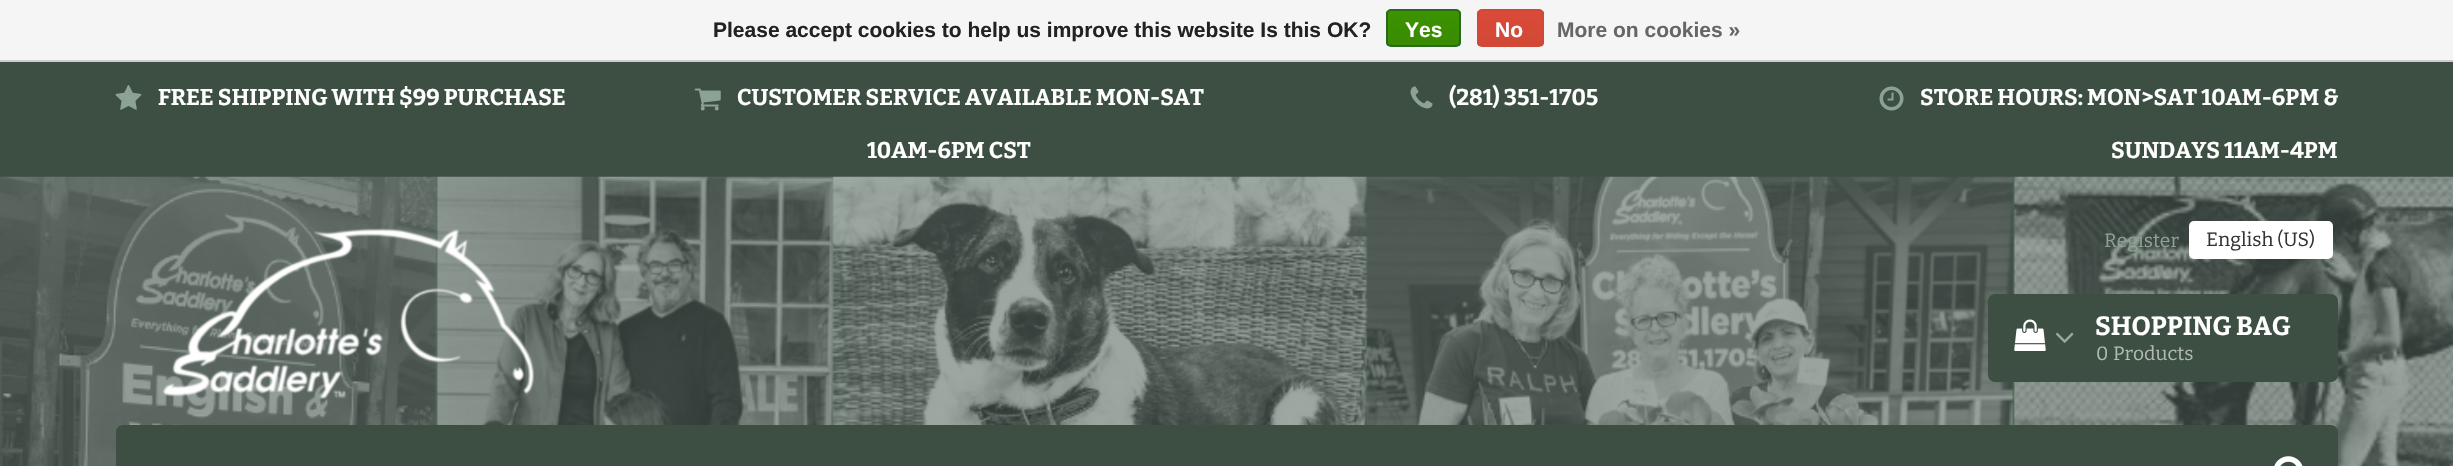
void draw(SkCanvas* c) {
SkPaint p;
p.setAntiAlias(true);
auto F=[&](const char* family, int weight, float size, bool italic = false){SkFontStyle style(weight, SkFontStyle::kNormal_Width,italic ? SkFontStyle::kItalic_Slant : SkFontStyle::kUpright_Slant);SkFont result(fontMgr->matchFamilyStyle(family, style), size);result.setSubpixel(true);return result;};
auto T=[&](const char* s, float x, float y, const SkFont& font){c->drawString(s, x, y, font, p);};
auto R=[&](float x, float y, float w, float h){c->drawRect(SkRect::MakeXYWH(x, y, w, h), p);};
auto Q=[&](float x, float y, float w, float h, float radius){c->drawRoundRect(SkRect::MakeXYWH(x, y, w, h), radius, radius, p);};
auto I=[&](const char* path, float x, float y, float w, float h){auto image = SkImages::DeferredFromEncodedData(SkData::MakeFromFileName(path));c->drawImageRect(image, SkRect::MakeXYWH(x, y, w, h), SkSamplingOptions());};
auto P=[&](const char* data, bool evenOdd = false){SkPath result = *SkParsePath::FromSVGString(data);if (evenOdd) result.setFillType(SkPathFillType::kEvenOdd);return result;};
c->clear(0xff3c4f42);
p.setColor(0xfff5f5f5);
R(0,0,2453,60);
p.setColor(0xffcccccc);
R(0,60,2453,2);
auto f1 = F("Liberation Sans",700,21);
p.setColor(0xff222222);
T("Please accept cookies to help us improve this website Is this OK?",713,37,f1);
c->save();
c->clipPath(P("M1391 9h65c3 0 5 2 5 5v28c0 3-2 5-5 5h-65c-3 0-5-2-5-5v-28c0-3 2-5 5-5z"),true);
{
const SkColor colors[] = {0xff3c9300,0xff398a00};
const float stops[] = {0,1};
const SkPoint ends[] = {{1424,10}, {1424,46}};
p.setShader(SkGradientShader::MakeLinear(ends, colors, stops, 2, SkTileMode::kClamp));
p.setAlpha(255);
}
R(1386,11,75,35);
c->restore();
p.setStroke(true);
p.setStrokeWidth(2);
p.setShader(nullptr);
p.setColor(0xff29691d);
c->drawRoundRect(SkRect::MakeXYWH(1387,10,73,36),4,4,p);
p.setStroke(false);
p.setColor(0xffffffff);
T("Yes",1405,37,f1);
c->save();
c->clipPath(P("M1482 9h57c3 0 5 2 5 5v28c0 3-2 5-5 5h-57c-3 0-5-2-5-5v-28c0-3 2-5 5-5z"),true);
{
const SkColor colors[] = {0xffdc4a38,0xffd14836};
const float stops[] = {0,1};
const SkPoint ends[] = {{1510,10}, {1510,46}};
p.setShader(SkGradientShader::MakeLinear(ends, colors, stops, 2, SkTileMode::kClamp));
p.setAlpha(255);
}
R(1477,11,67,35);
c->restore();
p.setStroke(true);
p.setShader(nullptr);
p.setColor(0xffd14836);
c->drawRoundRect(SkRect::MakeXYWH(1478,10,65,36),4,4,p);
p.setStroke(false);
p.setColor(0xffffffff);
T("No",1495,37,f1);
p.setColor(0xff666666);
T("More on cookies »",1557,37,f1);
I("1.png",115,85,27,25);
auto f2 = F("Bitter",700,22.75);
p.setColor(0xffffffff);
T("FREE SHIPPING WITH $99 PURCHASE",158,105,f2);
I("2.png",694,88,27,23);
T("CUSTOMER SERVICE AVAILABLE MON-SAT",737,105,f2);
T("10AM-6PM CST",867,158,f2);
I("3.png",1410,86,23,23);
T("(281) 351-1705",1449,105,f2);
I("4.png",1879,86,25,25);
T("STORE HOURS: MON>SAT 10AM-6PM &",1920,105,f2);
T("SUNDAYS 11AM-4PM",2111,158,f2);
I("5.png",0,176,2453,290);
I("6.png",162,228,372,172);
auto f3 = F("Bitter",400,19.25);
p.setColor(0xff8ca393);
T("Register",2104,247,f3);
p.setColor(0xffffffff);
Q(2189,221,144,38,5);
p.setColor(0xff333333);
T("English (US)",2206,246,f3);
p.setColor(0xff3c4f42);
Q(1988,294,350,88,7);
I("7.png",2014,319,32,32);
I("8.png",2055,332,19,11);
auto f4 = F("Bitter",700,26.25);
p.setColor(0xffffffff);
T("SHOPPING BAG",2095,335,f4);
p.setColor(0xffb1b9b3);
T("0",2096,360,f3);
T("Products",2113,360,f3);
p.setColor(0xff3c4f42);
c->drawPath(P("M123 425h2208c4 0 7 3 7 7v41h-2222v-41c0-4 3-7 7-7z"),p);
I("9.png",2274,456,29,10);
}
